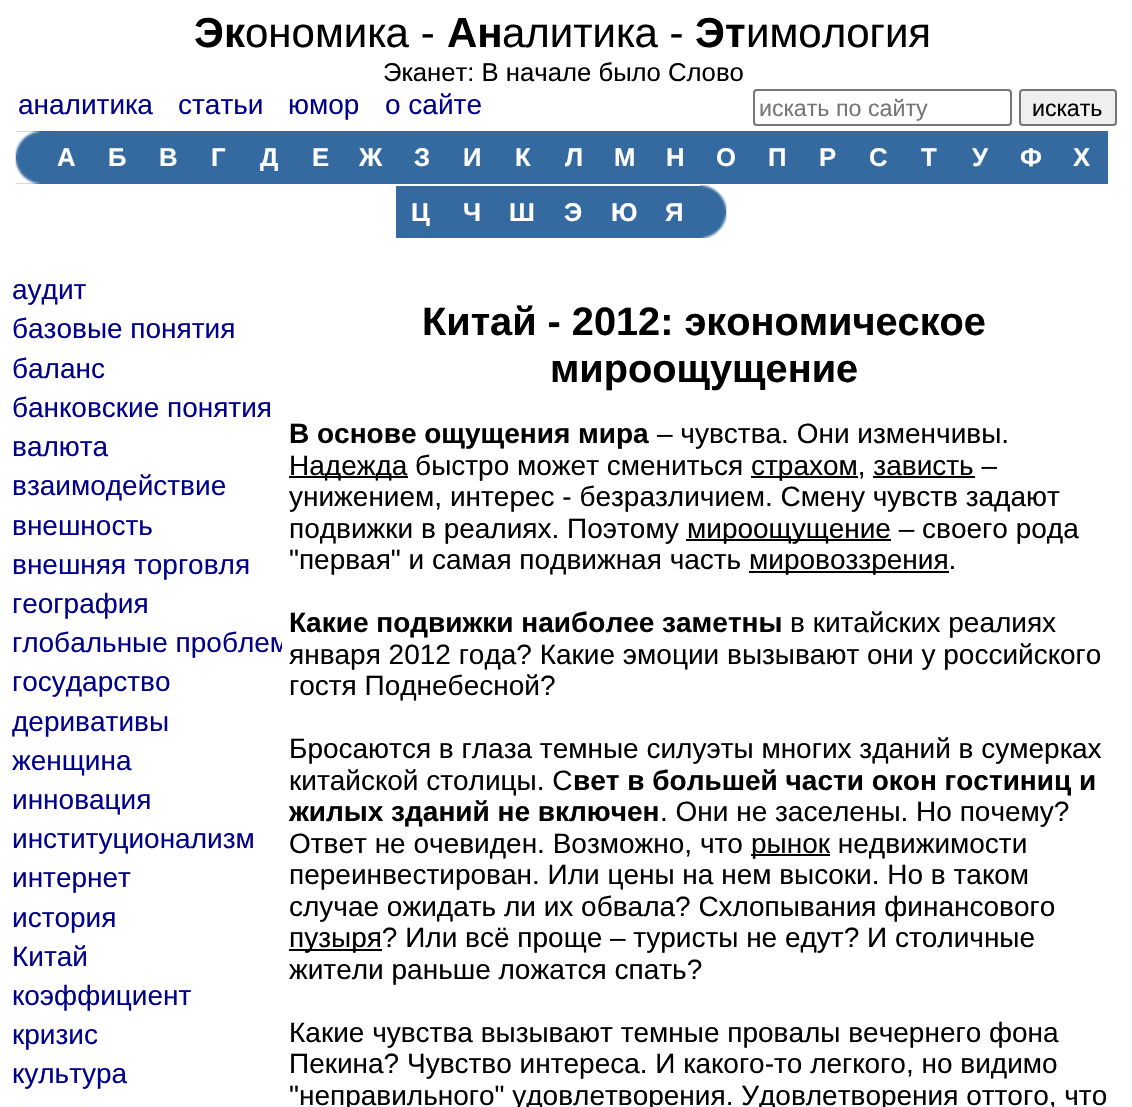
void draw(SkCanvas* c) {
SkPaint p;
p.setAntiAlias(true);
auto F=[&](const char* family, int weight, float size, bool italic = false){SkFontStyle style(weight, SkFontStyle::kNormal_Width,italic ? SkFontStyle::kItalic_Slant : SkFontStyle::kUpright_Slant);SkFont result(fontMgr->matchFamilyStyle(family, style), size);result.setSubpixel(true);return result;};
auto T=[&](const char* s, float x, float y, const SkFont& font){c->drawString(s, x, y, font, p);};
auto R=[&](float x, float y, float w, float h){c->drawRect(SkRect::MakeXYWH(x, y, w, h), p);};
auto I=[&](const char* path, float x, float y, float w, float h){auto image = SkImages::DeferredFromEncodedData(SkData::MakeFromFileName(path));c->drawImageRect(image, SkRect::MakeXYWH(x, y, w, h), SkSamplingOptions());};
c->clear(0xffffffff);
auto f1 = F("Liberation Sans",700,42);
p.setColor(0xff000000);
T("Эк",194,47,f1);
auto f2 = F("Liberation Sans",400,42);
T("ономика -",245,47,f2);
T("Ан",447,47,f1);
T("алитика -",502,47,f2);
T("Эт",695,47,f1);
T("имология",746,47,f2);
auto f3 = F("Liberation Sans",400,25.7);
T("Эканет: В начале было Cлово",383,81,f3);
auto f4 = F("Liberation Sans",400,28);
p.setColor(0xff00008b);
T("аналитика",18,114,f4);
T("статьи",178,114,f4);
T("юмор",288,114,f4);
T("о сайте",385,114,f4);
p.setStroke(true);
p.setStrokeWidth(2);
p.setColor(0xff767676);
c->drawRoundRect(SkRect::MakeXYWH(754,90,257,35),3,3,p);
auto f5 = F("Liberation Sans",400,23.25);
p.setStroke(false);
p.setColor(0xff757575);
T("искать по сайту",759,116,f5);
p.setColor(0xffefefef);
c->drawRoundRect(SkRect::MakeXYWH(1020,90,96,35),3,3,p);
p.setStroke(true);
p.setColor(0xff767676);
c->drawRoundRect(SkRect::MakeXYWH(1020,90,96,35),3,3,p);
p.setStroke(false);
p.setColor(0xff000000);
T("искать",1032,116,f5);
p.setColor(0xff356aa0);
R(16,131,1092,53);
I("1.png",15,131,26,53);
auto f6 = F("Liberation Sans",700,25.7);
p.setColor(0xffffffff);
T("А",57,166,f6);
T("Б",108,166,f6);
T("В",159,166,f6);
T("Г",211,166,f6);
T("Д",260,166,f6);
T("Е",312,166,f6);
T("Ж",359,166,f6);
T("З",414,166,f6);
T("И",463,166,f6);
T("К",515,166,f6);
T("Л",565,166,f6);
T("М",614,166,f6);
T("Н",666,166,f6);
T("О",716,166,f6);
T("П",768,166,f6);
T("Р",819,166,f6);
T("С",869,166,f6);
T("Т",921,166,f6);
T("У",972,166,f6);
T("Ф",1020,166,f6);
T("Х",1073,166,f6);
p.setColor(0xff356aa0);
R(396,186,304,52);
p.setColor(0xffffffff);
T("Ц",411,221,f6);
T("Ч",463,221,f6);
T("Ш",509,221,f6);
T("Э",564,221,f6);
T("Ю",611,221,f6);
T("Я",665,221,f6);
I("2.png",700,185,27,53);
p.setColor(0xff00008b);
T("аудит",12,299,f4);
T("базовые понятия",12,338,f4);
T("баланс",12,378,f4);
T("банковские понятия",12,417,f4);
T("валюта",12,456,f4);
T("взаимодействие",12,495,f4);
T("внешность",12,535,f4);
T("внешняя торговля",12,574,f4);
T("география",12,613,f4);
c->save();
c->clipRect(SkRect::MakeXYWH(7,625,275,38));
T("глобальные проблем",12,652,f4);
c->restore();
T("государство",12,691,f4);
T("деривативы",12,731,f4);
T("женщина",12,770,f4);
T("инновация",12,809,f4);
T("институционализм",12,848,f4);
T("интернет",12,887,f4);
T("история",12,927,f4);
T("Китай",12,966,f4);
T("коэффициент",12,1005,f4);
T("кризис",12,1044,f4);
T("культура",12,1083,f4);
auto f7 = F("Liberation Sans",700,39.7);
p.setColor(0xff000000);
T("Китай - 2012: экономическое",422,335,f7);
T("мироощущение",550,382,f7);
auto f8 = F("Liberation Sans",700,28);
T("В основе ощущения мира",289,443,f8);
T("– чувства. Они изменчивы.",657,443,f4);
R(289,476,119,2);
T("Надежда быстро может смениться",289,475,f4);
R(751,476,107,2);
T("страхом, зависть –",751,475,f4);
R(873,476,102,2);
T("унижением, интерес - безразличием. Смену чувств задают",289,506,f4);
T("подвижки в реалиях. Поэтому",289,538,f4);
R(686,539,205,2);
T("мироощущение – своего рода",687,538,f4);
T("\"первая\" и самая подвижная часть",289,569,f4);
R(749,571,200,2);
T("мировоззрения.",749,569,f4);
T("Какие подвижки наиболее заметны",289,632,f8);
T("в китайских реалиях",790,632,f4);
T("января 2012 года? Какие эмоции вызывают они у российского",289,664,f4);
T("гостя Поднебесной?",289,695,f4);
T("Бросаются в глаза темные силуэты многих зданий в сумерках",289,758,f4);
T("китайской столицы. С",289,790,f4);
T("вет в большей части окон гостиниц и",573,790,f8);
T("жилых зданий не включен",289,821,f8);
T(". Они не заселены. Но почему?",660,821,f4);
T("Ответ не очевиден. Возможно, что",289,853,f4);
R(751,854,79,2);
T("рынок недвижимости",751,853,f4);
T("переинвестирован. Или цены на нем высоки. Но в таком",289,884,f4);
T("случае ожидать ли их обвала? Схлопывания финансового",289,916,f4);
R(289,949,93,2);
T("пузыря? Или всё проще – туристы не едут? И столичные",289,947,f4);
T("жители раньше ложатся спать?",289,979,f4);
T("Какие чувства вызывают темные провалы вечернего фона",289,1042,f4);
T("Пекина? Чувство интереса. И какого-то легкого, но видимо",289,1073,f4);
T("\"неправильного\" удовлетворения. Удовлетворения оттого, что",289,1105,f4);
}
